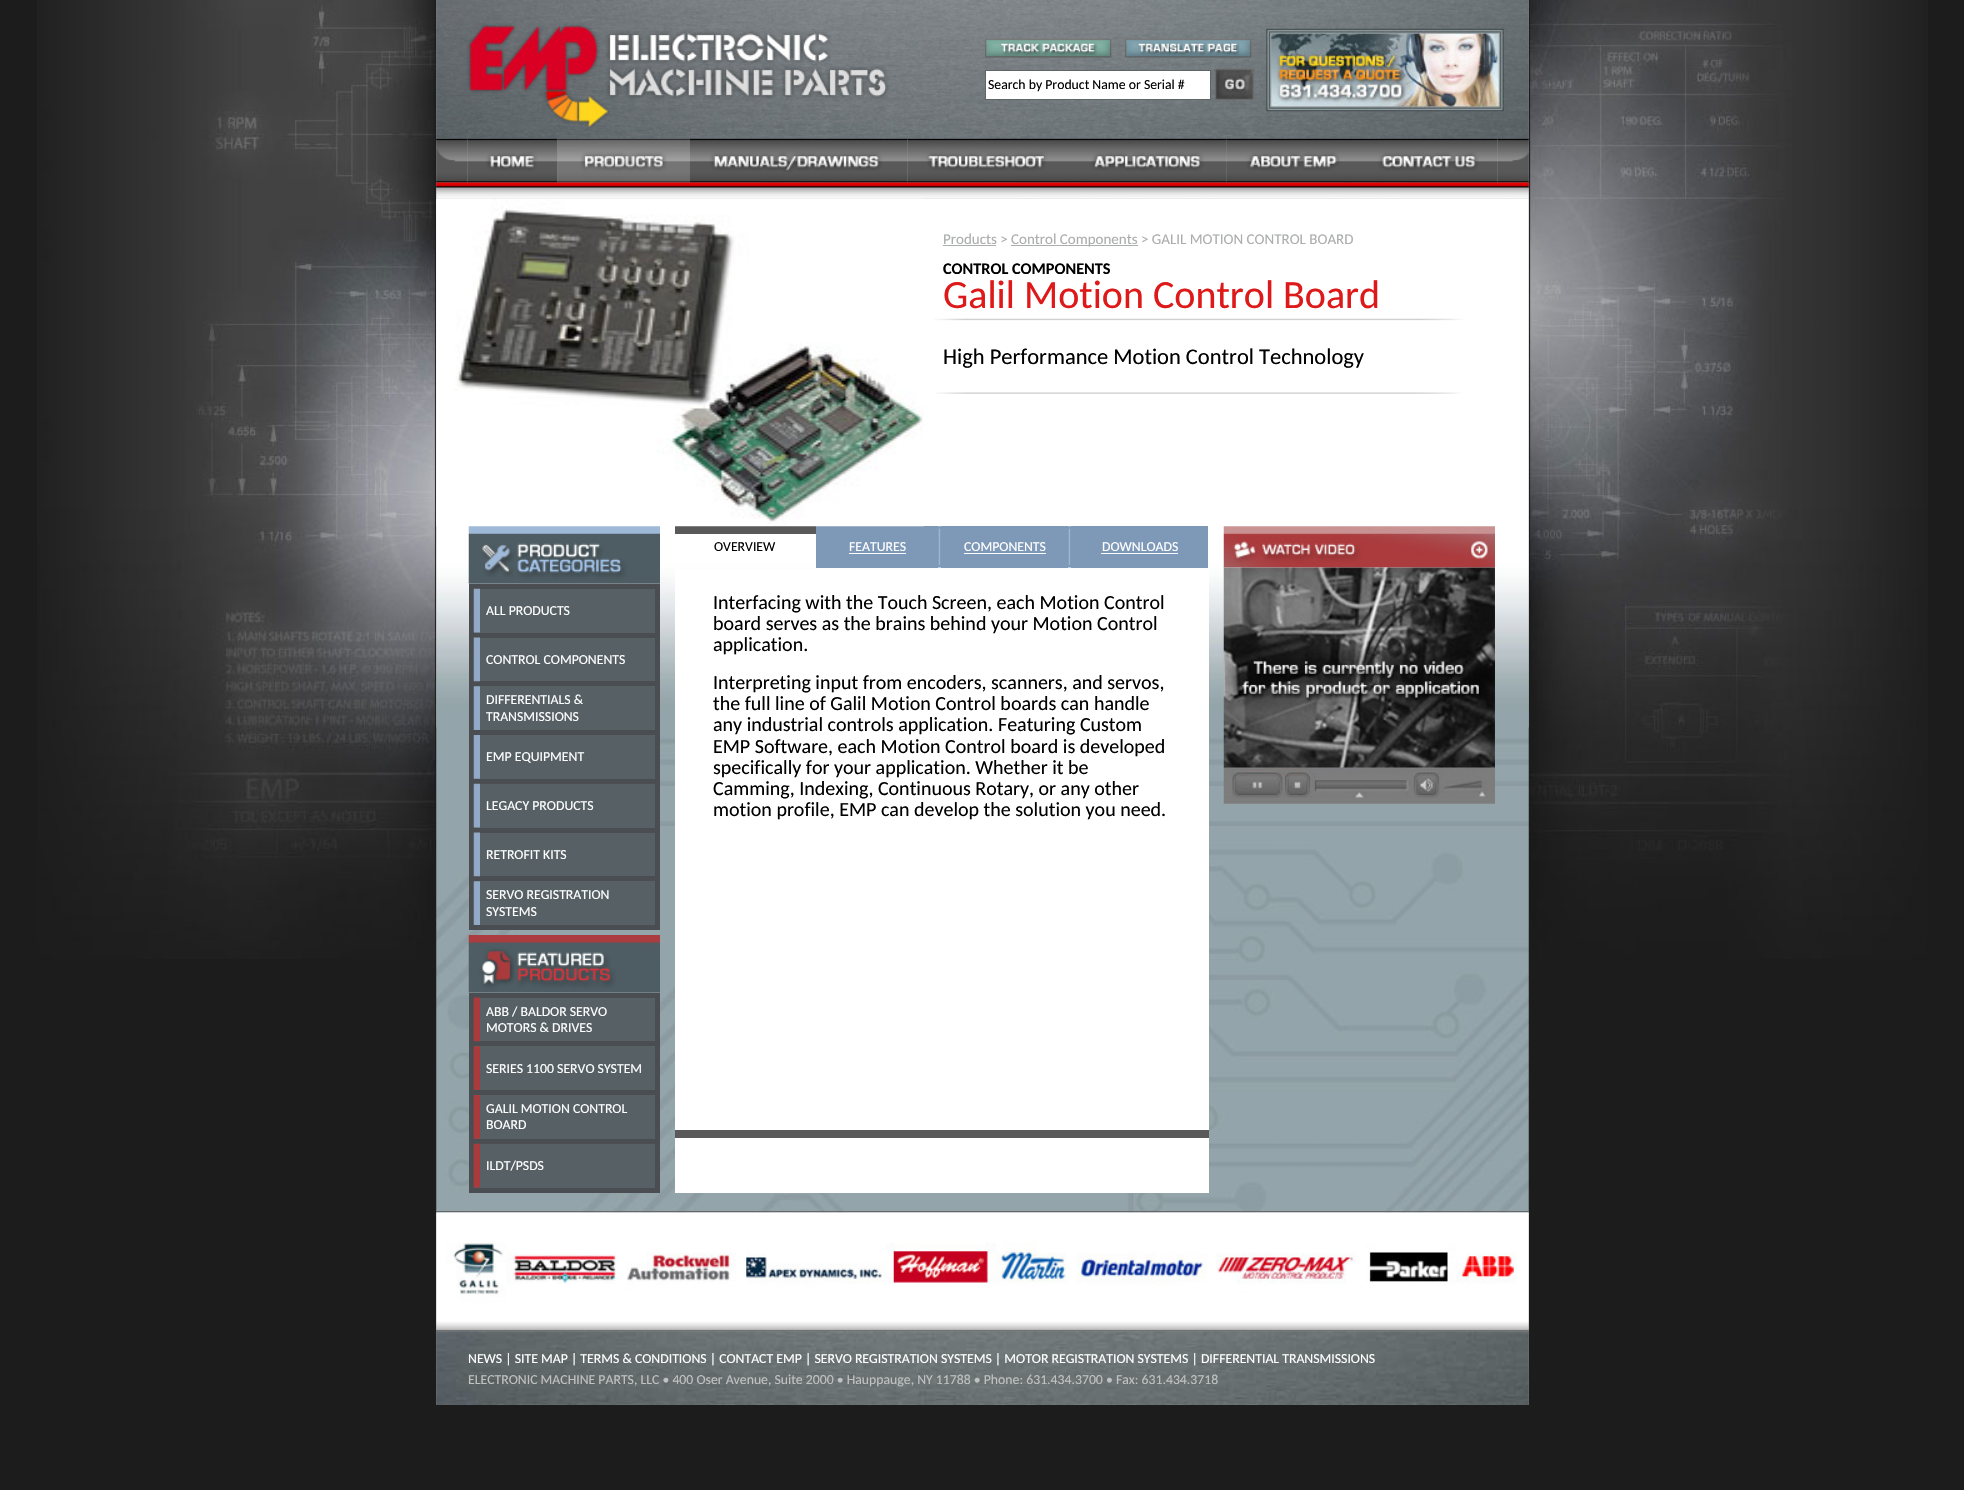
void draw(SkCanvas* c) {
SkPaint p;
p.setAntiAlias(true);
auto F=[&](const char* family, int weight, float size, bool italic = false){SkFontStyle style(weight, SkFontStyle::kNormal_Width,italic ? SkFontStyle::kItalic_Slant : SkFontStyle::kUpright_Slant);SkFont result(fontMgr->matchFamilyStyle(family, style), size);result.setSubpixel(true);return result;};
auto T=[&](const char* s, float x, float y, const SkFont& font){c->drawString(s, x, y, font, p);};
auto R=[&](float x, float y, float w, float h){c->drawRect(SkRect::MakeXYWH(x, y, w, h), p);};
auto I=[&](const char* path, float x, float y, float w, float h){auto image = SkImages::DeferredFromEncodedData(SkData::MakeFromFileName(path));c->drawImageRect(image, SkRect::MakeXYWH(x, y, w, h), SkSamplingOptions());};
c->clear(0xff1c1c1c);
I("1.png",37,0,1891,959);
I("2.png",436,0,1093,1405);
I("3.png",436,0,1093,139);
I("4.png",985,38,127,20);
I("5.png",1125,38,127,20);
p.setColor(0xffffffff);
c->drawRect(SkRect::MakeXYWH(985.5,70.5,225,29),p);
p.setStroke(true);
p.setStrokeWidth(1);
p.setColor(0xff5e6567);
c->drawRect(SkRect::MakeXYWH(985.5,70.5,225,29),p);
auto f1 = F("Carlito",400,13.75);
p.setStroke(false);
p.setColor(0xff000000);
T("Search by Product Name or Serial #",988,89,f1);
I("6.png",1215,68,39,32);
I("7.png",1266,28,238,84);
I("8.png",436,138,32,45);
I("9.png",467,138,91,45);
I("10.png",557,138,133,45);
I("11.png",690,138,218,45);
I("12.png",907,138,163,45);
I("13.png",1070,138,157,45);
I("14.png",1226,138,134,45);
I("15.png",1360,138,138,45);
I("16.png",1497,138,32,45);
I("18.png",436,198,1093,530);
I("17.png",436,182,1093,17);
p.setColor(0xff595959);
R(675,526,141,8);
p.setColor(0xff7e98b8);
R(816,526,122,42);
I("19.png",436,198,488,329);
auto f2 = F("Carlito",400,15);
p.setColor(0xffacadad);
T("Products >",943,244,f2);
R(943,245,53,1);
R(1011,245,127,1);
T("Control Components > GALIL MOTION CONTROL BOARD",1011,244,f2);
auto f3 = F("Carlito",700,16.25);
p.setColor(0xff000000);
T("CONTROL COMPONENTS",943,274,f3);
auto f4 = F("Carlito",400,40);
p.setColor(0xffde1919);
T("Galil Motion Control Board",943,308,f4);
I("20.png",934,318,529,3);
auto f5 = F("Carlito",400,22.5);
p.setColor(0xff000000);
T("High Performance Motion Control Technology",943,364,f5);
I("21.png",935,392,526,2);
I("22.png",468,526,192,58);
p.setColor(0xff4a4d51);
R(469,584,191,346);
p.setColor(0xff566065);
R(474,589,181,44);
I("23.png",473,588,7,45);
p.setColor(0xffffffff);
T("ALL PRODUCTS",486,615,f1);
p.setColor(0xff566065);
R(480,638,175,43);
I("24.png",473,637,7,45);
p.setColor(0xffffffff);
T("CONTROL COMPONENTS",486,664,f1);
p.setColor(0xff566065);
R(474,686,181,44);
I("25.png",473,686,7,44);
p.setColor(0xffffffff);
T("DIFFERENTIALS &",486,704,f1);
T("TRANSMISSIONS",486,721,f1);
p.setColor(0xff566065);
R(474,735,181,44);
I("26.png",473,735,7,44);
p.setColor(0xffffffff);
T("EMP EQUIPMENT",486,761,f1);
p.setColor(0xff566065);
R(474,784,181,44);
I("23.png",473,783,7,45);
p.setColor(0xffffffff);
T("LEGACY PRODUCTS",486,810,f1);
p.setColor(0xff566065);
R(480,833,175,43);
I("24.png",473,832,7,45);
p.setColor(0xffffffff);
T("RETROFIT KITS",486,859,f1);
p.setColor(0xff566065);
R(474,881,181,44);
I("25.png",473,881,7,44);
p.setColor(0xffffffff);
T("SERVO REGISTRATION",486,899,f1);
T("SYSTEMS",486,916,f1);
I("27.png",468,935,192,58);
p.setColor(0xff4a4d51);
R(469,993,191,200);
p.setColor(0xff566065);
R(480,998,175,43);
I("28.png",473,997,7,45);
p.setColor(0xffffffff);
T("ABB / BALDOR SERVO",486,1016,f1);
T("MOTORS & DRIVES",486,1032,f1);
p.setColor(0xff566065);
R(474,1046,181,44);
I("29.png",473,1046,7,44);
p.setColor(0xffffffff);
T("SERIES 1100 SERVO SYSTEM",486,1073,f1);
p.setColor(0xff566065);
R(474,1095,181,44);
I("30.png",473,1095,7,44);
p.setColor(0xffffffff);
T("GALIL MOTION CONTROL",486,1113,f1);
T("BOARD",486,1129,f1);
p.setColor(0xff566065);
R(474,1144,181,44);
I("31.png",473,1143,7,45);
p.setColor(0xffffffff);
T("ILDT/PSDS",486,1170,f1);
R(675,569,534,624);
p.setColor(0xff000000);
T("OVERVIEW",714,551,f1);
p.setColor(0xffffffff);
T("FEATURES",849,551,f1);
R(849,553,57,1);
I("32.png",938,526,3,42);
p.setColor(0xff7e98b8);
R(941,526,127,42);
p.setColor(0xffffffff);
T("COMPONENTS",964,551,f1);
R(964,553,82,1);
I("32.png",1068,526,3,42);
p.setColor(0xff7e98b8);
R(1071,526,137,42);
p.setColor(0xffffffff);
T("DOWNLOADS",1102,551,f1);
R(1101,553,77,1);
auto f6 = F("Carlito",400,20);
p.setColor(0xff000000);
T("Interfacing with the Touch Screen, each Motion Control",713,609,f6);
T("board serves as the brains behind your Motion Control",713,630,f6);
T("application.",713,651,f6);
T("Interpreting input from encoders, scanners, and servos,",713,689,f6);
T("the full line of Galil Motion Control boards can handle",713,710,f6);
T("any industrial controls application. Featuring Custom",713,731,f6);
T("EMP Software, each Motion Control board is developed",713,753,f6);
T("specifically for your application. Whether it be",713,774,f6);
T("Camming, Indexing, Continuous Rotary, or any other",713,795,f6);
T("motion profile, EMP can develop the solution you need.",713,816,f6);
p.setColor(0xff595959);
R(675,1130,534,8);
I("33.png",1223,526,272,42);
I("34.png",1223,567,272,237);
p.setColor(0xff676767);
R(436,1211,1093,1);
I("35.png",436,1212,1093,108);
I("37.png",436,1331,1093,74);
I("36.png",436,1320,1093,12);
p.setColor(0xffffffff);
T("NEWS | SITE MAP | TERMS & CONDITIONS | CONTACT EMP | SERVO REGISTRATION SYSTEMS | MOTOR REGISTRATION SYSTEMS | DIFFERENTIAL TRANSMISSIONS",468,1363,f1);
p.setColor(0xffc1c1c1);
T("ELECTRONIC MACHINE PARTS, LLC • 400 Oser Avenue, Suite 2000 • Hauppauge, NY 11788 • Phone: 631.434.3700 • Fax: 631.434.3718",468,1384,f1);
}
